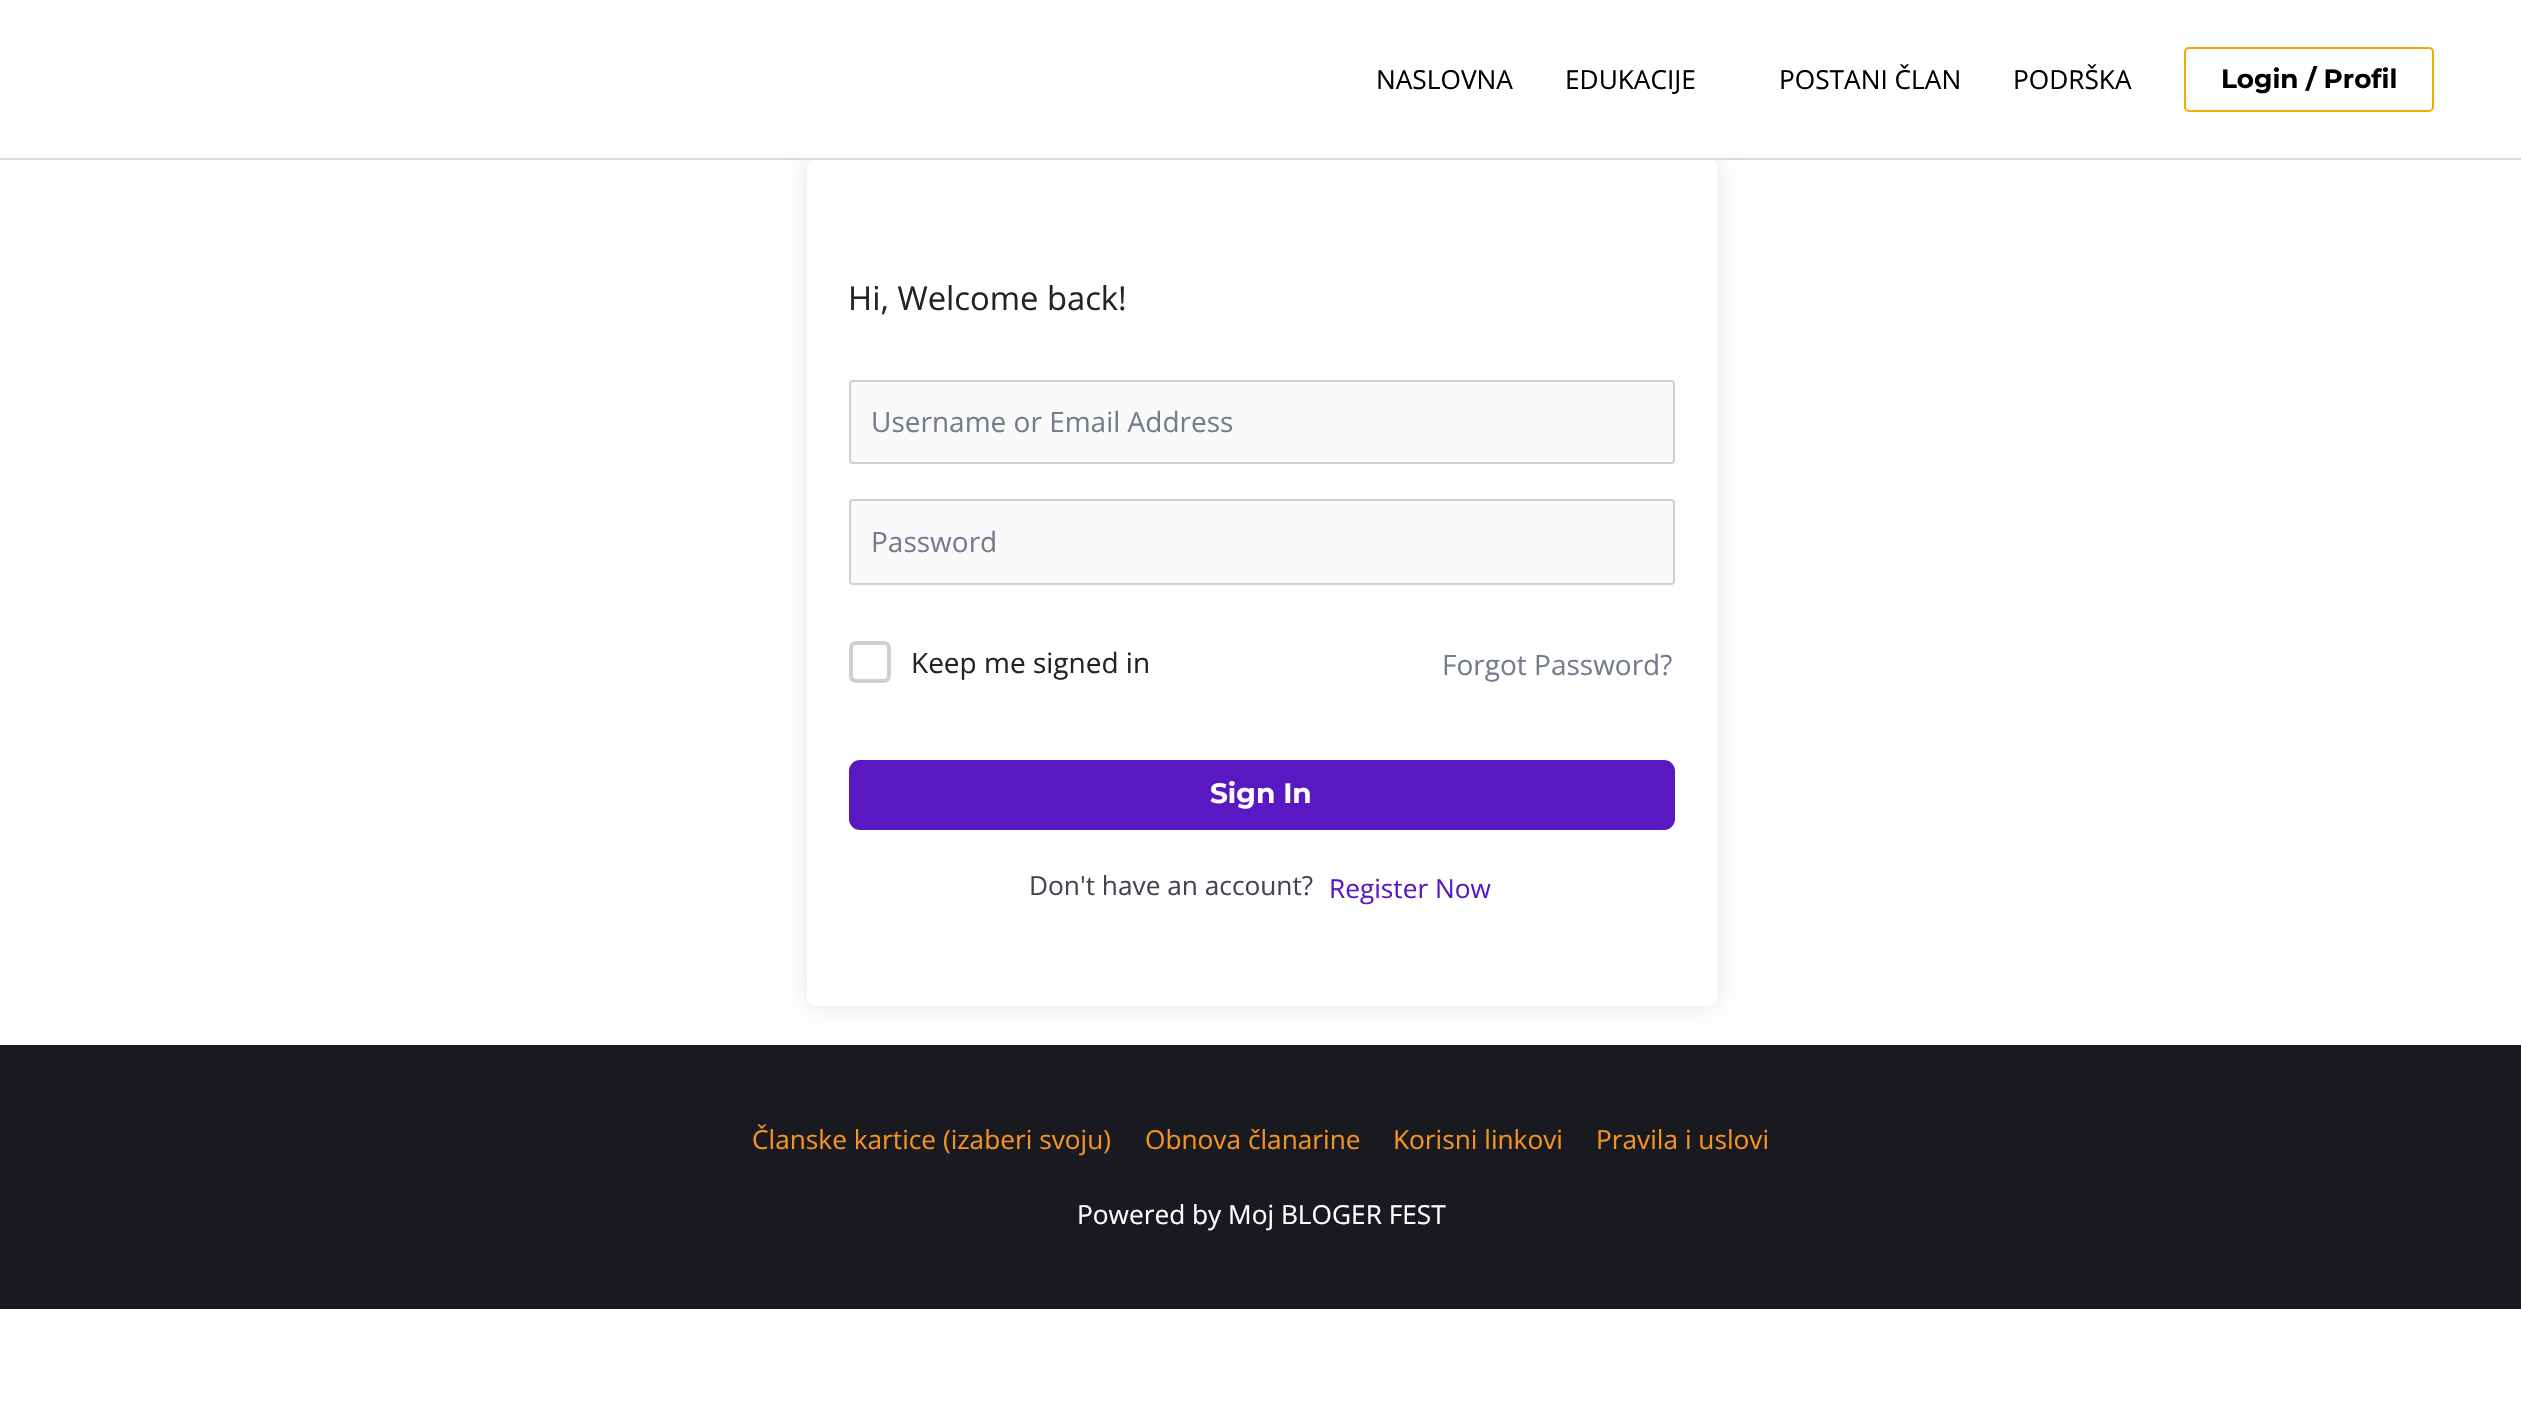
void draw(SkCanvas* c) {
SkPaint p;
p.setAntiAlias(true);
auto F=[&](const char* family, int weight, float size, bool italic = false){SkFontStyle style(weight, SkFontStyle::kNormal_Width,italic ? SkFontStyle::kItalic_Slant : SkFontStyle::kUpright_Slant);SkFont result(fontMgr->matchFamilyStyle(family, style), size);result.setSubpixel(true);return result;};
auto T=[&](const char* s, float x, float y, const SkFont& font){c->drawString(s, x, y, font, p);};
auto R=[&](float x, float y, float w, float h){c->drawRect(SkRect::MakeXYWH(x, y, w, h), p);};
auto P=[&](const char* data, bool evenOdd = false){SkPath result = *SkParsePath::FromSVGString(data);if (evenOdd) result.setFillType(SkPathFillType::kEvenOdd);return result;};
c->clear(0xffffffff);
c->save();
c->clipPath(P("M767 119h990v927h-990zm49 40h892c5 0 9 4 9 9v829c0 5-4 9-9 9h-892c-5 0-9-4-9-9v-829c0-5 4-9 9-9z",true),true);
p.setColor(0x1a000000);
p.setMaskFilter(SkMaskFilter::MakeBlur(kNormal_SkBlurStyle, 13));
c->drawRoundRect(SkRect::MakeXYWH(807,159,910,847),9,9,p);
p.setMaskFilter(nullptr);
c->restore();
p.setColor(0xffffffff);
R(798,142,928,16);
p.setColor(0xffdbdbdb);
R(0,158,2521,2);
auto f1 = F("Open Sans",400,26.25);
p.setColor(0xff000000);
T("NASLOVNA",1376,89,f1);
T("EDUKACIJE",1565,89,f1);
T("POSTANI ČLAN",1779,89,f1);
T("PODRŠKA",2013,89,f1);
p.setStroke(true);
p.setStrokeWidth(2);
p.setColor(0xfff3ab00);
c->drawRoundRect(SkRect::MakeXYWH(2185,48,248,63),4,4,p);
auto f2 = F("Montserrat",100,26.25);
p.setStroke(false);
p.setColor(0xff000000);
T("Login / Profil",2221,88,f2);
auto f3 = F("Open Sans",400,32.75);
p.setColor(0xff212327);
T("Hi, Welcome back!",848,310,f3);
p.setColor(0xfffafafa);
c->drawRoundRect(SkRect::MakeXYWH(850,381,824,82),3,3,p);
p.setStroke(true);
p.setColor(0xffcdcfd5);
c->drawRoundRect(SkRect::MakeXYWH(850,381,824,82),3,3,p);
auto f4 = F("Open Sans",400,28);
p.setStroke(false);
p.setColor(0xff757c8e);
T("Username or Email Address",871,432,f4);
p.setColor(0xfffafafa);
c->drawRoundRect(SkRect::MakeXYWH(850,500,824,84),3,3,p);
p.setStroke(true);
p.setColor(0xffcdcfd5);
c->drawRoundRect(SkRect::MakeXYWH(850,500,824,84),3,3,p);
p.setStroke(false);
p.setColor(0xff757c8e);
T("Password",871,552,f4);
p.setStroke(true);
p.setStrokeWidth(4);
p.setColor(0xffcdcfd5);
c->drawRoundRect(SkRect::MakeXYWH(851,643,38,38),5,5,p);
p.setStroke(false);
p.setColor(0xff212327);
T("Keep me signed in",911,673,f4);
p.setColor(0xff757c8e);
T("Forgot Password?",1442,675,f4);
p.setColor(0xff5a18c2);
c->drawRoundRect(SkRect::MakeXYWH(850,761,824,68),10,10,p);
p.setStroke(true);
p.setStrokeWidth(2);
c->drawRoundRect(SkRect::MakeXYWH(850,761,824,68),10,10,p);
auto f5 = F("Montserrat",100,28);
p.setStroke(false);
p.setColor(0xffffffff);
T("Sign In",1210,803,f5);
p.setColor(0xff41454f);
T("Don't have an account?",1029,895,f1);
p.setColor(0xff5a18c2);
T("Register Now",1329,898,f1);
p.setColor(0xff191a1f);
R(0,1045,2521,264);
p.setColor(0xfff49222);
T("Članske kartice (izaberi svoju)",752,1149,f1);
T("Obnova članarine",1145,1149,f1);
T("Korisni linkovi",1393,1149,f1);
T("Pravila i uslovi",1596,1149,f1);
p.setColor(0xffffffff);
T("Powered by Moj BLOGER FEST",1077,1224,f1);
}
